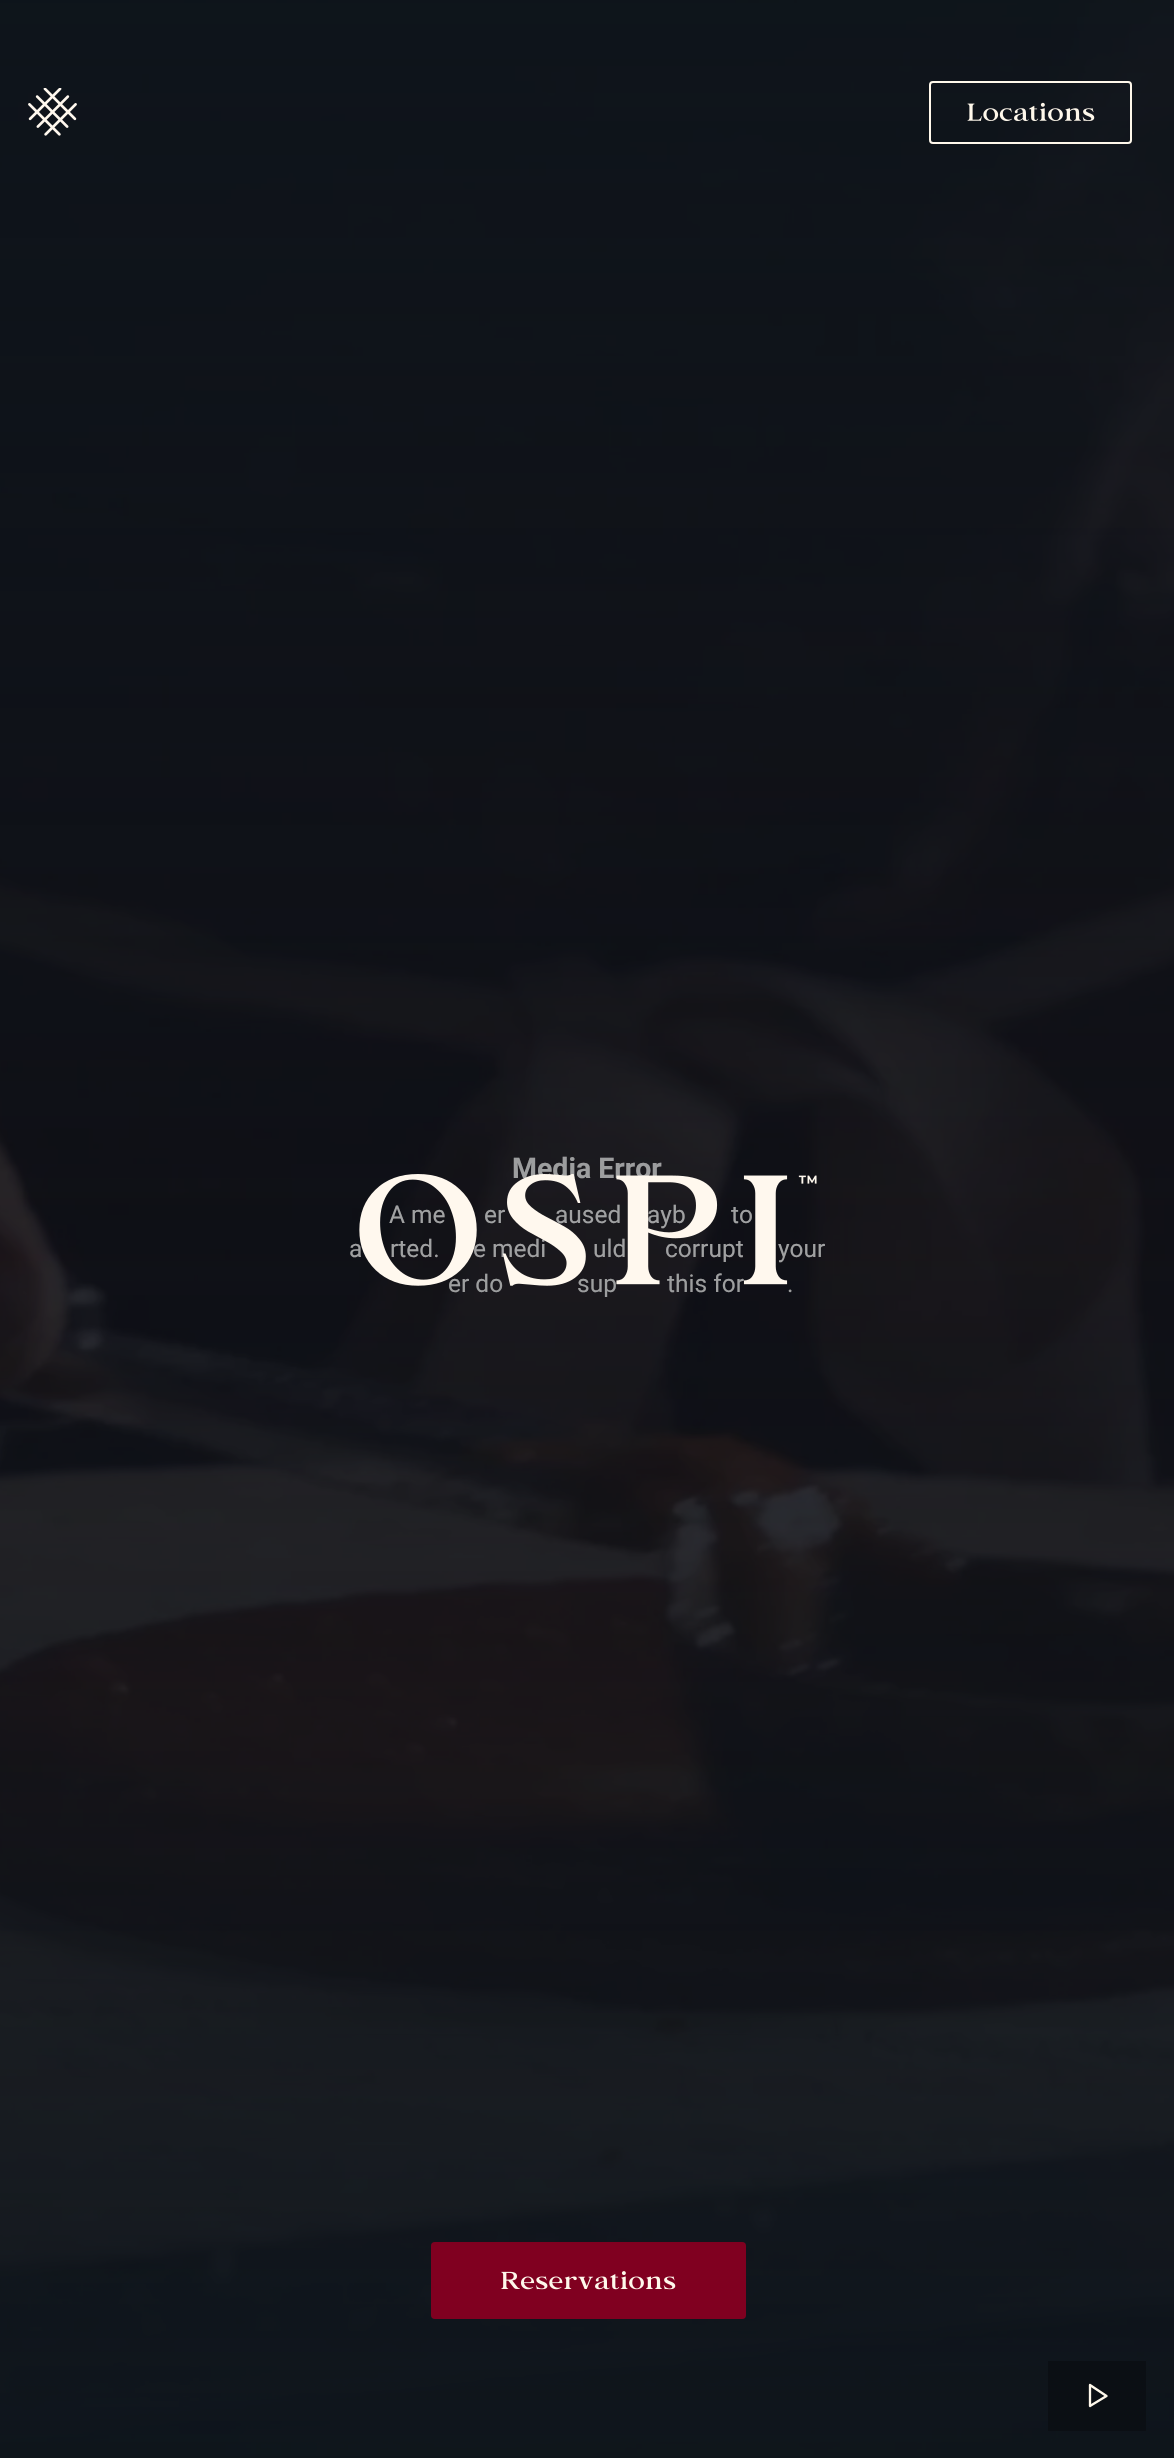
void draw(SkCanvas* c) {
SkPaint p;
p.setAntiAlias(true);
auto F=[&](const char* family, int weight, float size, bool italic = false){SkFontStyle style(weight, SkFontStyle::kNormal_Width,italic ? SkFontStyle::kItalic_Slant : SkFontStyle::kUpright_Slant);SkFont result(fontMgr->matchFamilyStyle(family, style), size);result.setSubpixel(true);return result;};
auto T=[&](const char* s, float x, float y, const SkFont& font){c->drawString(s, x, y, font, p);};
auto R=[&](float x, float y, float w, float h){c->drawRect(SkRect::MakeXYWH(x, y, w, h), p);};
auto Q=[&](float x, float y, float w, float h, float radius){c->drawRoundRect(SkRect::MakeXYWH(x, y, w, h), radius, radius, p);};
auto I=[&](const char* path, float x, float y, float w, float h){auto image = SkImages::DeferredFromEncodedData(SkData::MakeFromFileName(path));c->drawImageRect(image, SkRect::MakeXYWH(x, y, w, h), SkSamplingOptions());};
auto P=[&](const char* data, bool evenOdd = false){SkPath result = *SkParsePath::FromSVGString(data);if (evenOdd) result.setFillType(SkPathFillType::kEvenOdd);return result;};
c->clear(0xffffffff);
I("3.png",0,0,1174,2458);
auto f1 = F("Roboto",700,28.5);
p.setColor(0xffb3b3b3);
T("Media Error",512,1178,f1);
auto f2 = F("Roboto",400,24.5);
T("A me",389,1223,f2);
T("er",484,1223,f2);
T("aused",555,1223,f2);
T("ayb",647,1223,f2);
T("to",731,1223,f2);
T("a",349,1257,f2);
T("rted.",390,1257,f2);
T("e medi",473,1257,f2);
T("uld",593,1257,f2);
T("corrupt",665,1257,f2);
T("your",778,1257,f2);
T("er do",448,1292,f2);
T("sup",577,1292,f2);
T("this for",667,1292,f2);
T(".",787,1292,f2);
{
const SkColor colors[] = {0xcc0d151c,0x1a0d151c,0xcc0d151c};
const float stops[] = {0,.5,1};
const SkPoint ends[] = {{587,0}, {587,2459}};
p.setShader(SkGradientShader::MakeLinear(ends, colors, stops, 3, SkTileMode::kClamp));
p.setAlpha(255);
}
R(0,0,1174,2458);
I("1.png",28,88,49,48);
p.setStroke(true);
p.setStrokeWidth(2);
p.setShader(nullptr);
p.setColor(0xfffff8eb);
c->drawRoundRect(SkRect::MakeXYWH(930,82,201,61),3,3,p);
I("2.png",967,102,128,19);
I("4.png",359,1174,458,112);
p.setStroke(false);
p.setColor(0xff800020);
Q(431,2242,315,77,4);
I("5.png",501,2271,175,19);
p.setColor(0xff0b0f14);
R(1048,2361,98,70);
p.setStroke(true);
p.setStrokeWidth(2.3);
p.setStrokeCap(SkPaint::kRound_Cap);
p.setStrokeJoin(SkPaint::kRound_Join);
p.setColor(0xfffff8eb);
c->drawPath(P("M1090 2385l16.5 11l-16.5 10z"),p);
}
